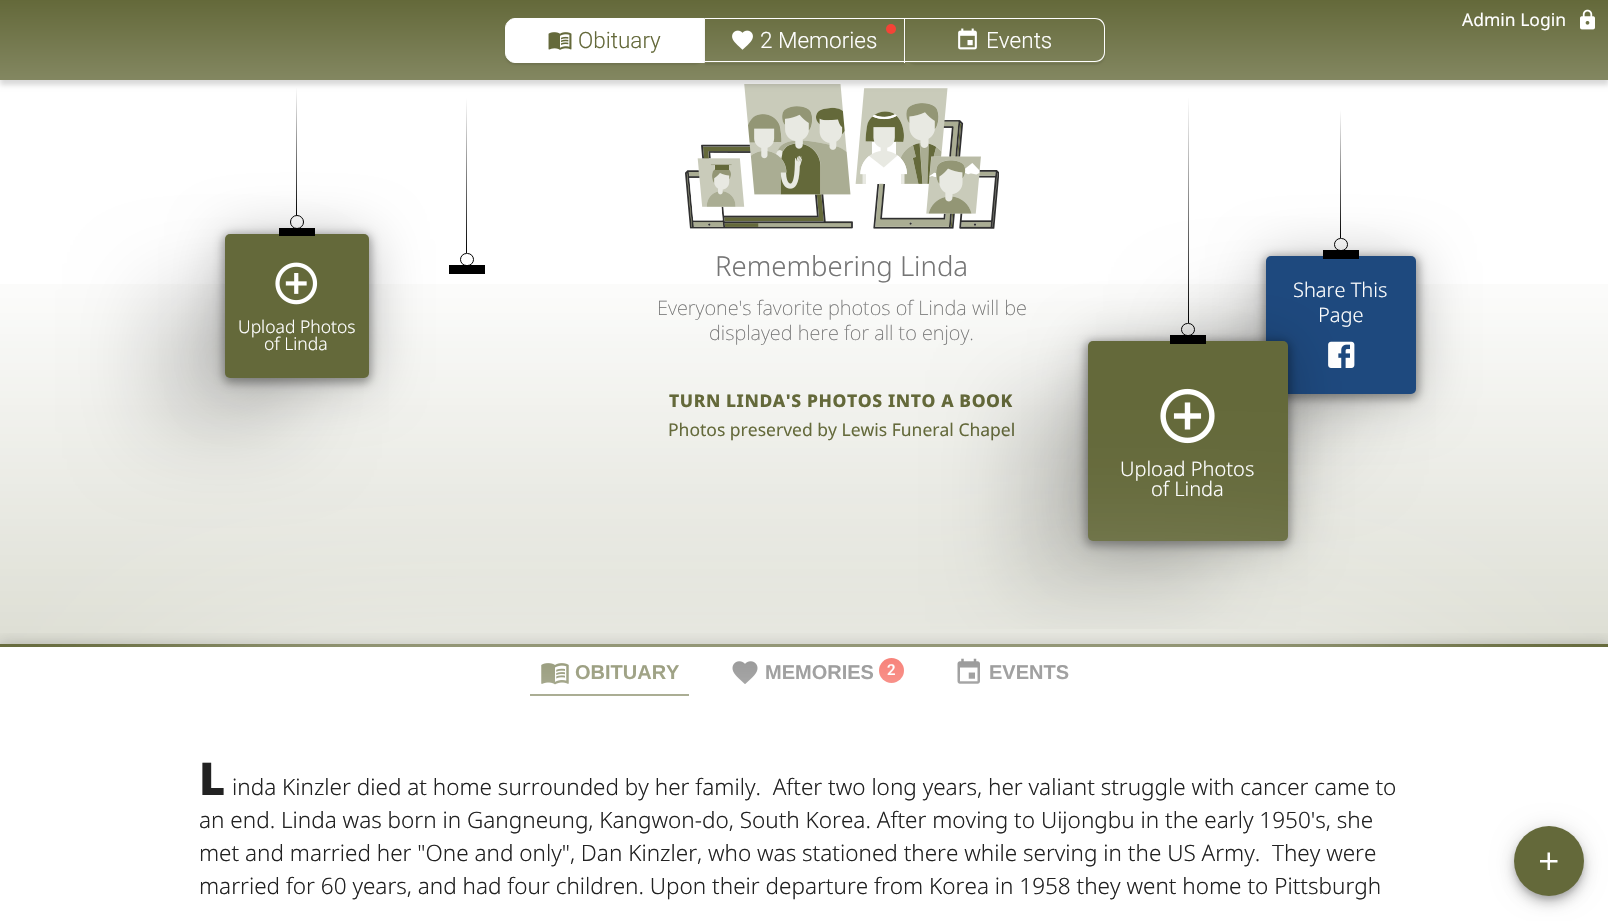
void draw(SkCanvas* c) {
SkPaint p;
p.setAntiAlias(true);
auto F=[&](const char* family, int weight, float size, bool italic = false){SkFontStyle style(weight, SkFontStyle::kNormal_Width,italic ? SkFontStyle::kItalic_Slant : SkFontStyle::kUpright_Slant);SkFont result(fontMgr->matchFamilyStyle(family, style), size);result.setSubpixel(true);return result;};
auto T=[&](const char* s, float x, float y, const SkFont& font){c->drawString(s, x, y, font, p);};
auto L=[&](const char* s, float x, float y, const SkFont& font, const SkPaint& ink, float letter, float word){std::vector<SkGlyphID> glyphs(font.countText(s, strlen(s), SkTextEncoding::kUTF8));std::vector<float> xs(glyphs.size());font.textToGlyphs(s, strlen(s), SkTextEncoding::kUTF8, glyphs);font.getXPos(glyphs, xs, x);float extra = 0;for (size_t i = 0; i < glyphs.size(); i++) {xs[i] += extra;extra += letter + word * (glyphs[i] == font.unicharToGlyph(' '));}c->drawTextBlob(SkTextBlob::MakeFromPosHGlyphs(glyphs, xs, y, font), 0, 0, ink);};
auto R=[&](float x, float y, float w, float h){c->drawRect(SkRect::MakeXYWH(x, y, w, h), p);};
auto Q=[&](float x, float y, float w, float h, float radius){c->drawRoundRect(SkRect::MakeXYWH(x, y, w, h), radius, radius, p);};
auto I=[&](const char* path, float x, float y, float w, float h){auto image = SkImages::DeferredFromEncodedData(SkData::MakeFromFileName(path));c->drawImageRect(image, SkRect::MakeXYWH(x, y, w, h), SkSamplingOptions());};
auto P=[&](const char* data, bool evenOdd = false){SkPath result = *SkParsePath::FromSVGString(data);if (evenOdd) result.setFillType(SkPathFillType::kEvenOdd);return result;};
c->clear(0xffffffff);
c->save();
c->clipRect(SkRect::MakeXYWH(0,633,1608,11));
p.setColor(0x40000000);
p.setMaskFilter(SkMaskFilter::MakeBlur(kNormal_SkBlurStyle, 7.5));
c->drawRect(SkRect::MakeXYWH(-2,644,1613,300),p);
p.setMaskFilter(nullptr);
c->restore();
{
const SkColor colors[] = {0x0064693a,0x3864693a};
const float stops[] = {.4,1};
const SkPoint ends[] = {{804,-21}, {804,644}};
p.setShader(SkGradientShader::MakeLinear(ends, colors, stops, 2, SkTileMode::kClamp));
p.setAlpha(255);
}
R(0,284,1608,360);
p.setShader(nullptr);
p.setColor(0xff000000);
R(449,265,36,9);
p.setColor(0x40000000);
p.setMaskFilter(SkMaskFilter::MakeBlur(kNormal_SkBlurStyle, 27.5));
c->drawRoundRect(SkRect::MakeXYWH(225,239,144,144),5,5,p);
p.setMaskFilter(nullptr);
p.setColor(0x26000000);
p.setMaskFilter(SkMaskFilter::MakeBlur(kNormal_SkBlurStyle, 40));
c->drawRoundRect(SkRect::MakeXYWH(150,289,144,144),5,5,p);
p.setMaskFilter(nullptr);
{
const SkColor colors[] = {0xffffffff,0xff000000};
const float stops[] = {0,1};
const SkPoint ends[] = {{297,87}, {297,215}};
p.setShader(SkGradientShader::MakeLinear(ends, colors, stops, 2, SkTileMode::kClamp));
p.setAlpha(255);
}
R(296,88,1,127);
I("6.png",685,84,314,145);
p.setShader(nullptr);
p.setColor(0x26000000);
p.setMaskFilter(SkMaskFilter::MakeBlur(kNormal_SkBlurStyle, 2.5));
c->drawRect(SkRect::MakeXYWH(0,5,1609,80),p);
p.setMaskFilter(nullptr);
{
const SkColor colors[] = {0xff64693a,0xff838761};
const float stops[] = {0,1};
const SkPoint ends[] = {{804,0}, {804,80}};
p.setShader(SkGradientShader::MakeLinear(ends, colors, stops, 2, SkTileMode::kClamp));
p.setAlpha(255);
}
R(0,0,1608,80);
auto f1 = F("Noto Sans",400,17.5);
p.setShader(nullptr);
p.setColor(0xffffffff);
T("Admin Login",1462,26,f1);
I("1.png",1580,9,15,21);
p.setColor(0x1a000000);
p.setMaskFilter(SkMaskFilter::MakeBlur(kNormal_SkBlurStyle, 1));
c->drawRoundRect(SkRect::MakeXYWH(505,20,200,45),10,10,p);
p.setMaskFilter(nullptr);
p.setColor(0xffffffff);
c->drawPath(P("M515 18.5h189.5v44h-189.5c-5 0-9.5-4.5-9.5-9.5v-25c0-5 4.5-9.5 9.5-9.5z"),p);
p.setStroke(true);
p.setStrokeWidth(1);
c->drawPath(P("M515 18.5h189.5v44h-189.5c-5 0-9.5-4.5-9.5-9.5v-25c0-5 4.5-9.5 9.5-9.5z"),p);
I("2.png",548,32,24,18);
auto f2 = F("Roboto",300,22.5);
p.setStroke(false);
p.setColor(0xff64693a);
T("Obituary",578,48,f2);
c->save();
c->clipPath(P("M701 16h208v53h-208zm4 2h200v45h-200z",true),true);
p.setColor(0x1a000000);
p.setMaskFilter(SkMaskFilter::MakeBlur(kNormal_SkBlurStyle, 1));
c->drawRect(SkRect::MakeXYWH(705,20,200,45),p);
p.setMaskFilter(nullptr);
c->restore();
p.setColor(0xffffffff);
R(705,18,200,1);
R(904,18,1,45);
R(705,61,200,1);
p.setColor(0xfff44336);
c->drawCircle(891,29,5,p);
I("3.png",732,30,21,20);
p.setColor(0xffffffff);
T("2 Memories",760,48,f2);
c->save();
c->clipPath(P("M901 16h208v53h-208zm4 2h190c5.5 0 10 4.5 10 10v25c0 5.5-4.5 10-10 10h-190z",true),true);
p.setColor(0x1a000000);
p.setMaskFilter(SkMaskFilter::MakeBlur(kNormal_SkBlurStyle, 1));
c->drawRoundRect(SkRect::MakeXYWH(905,20,200,45),10,10,p);
p.setMaskFilter(nullptr);
c->restore();
p.setColor(0xffffffff);
c->drawPath(P("M905 18h190c6 0 10 4 10 10v24c0 6-4 10-10 10h-190zm0 1h190c5 0 9 4 9 9v24c0 5-4 9-9 9h-190z",true),p);
I("4.png",958,28,19,22);
T("Events",986,48,f2);
p.setColor(0xff64693a);
R(0,644,1608,3);
{
const SkColor colors[] = {0xffffffff,0xff000000};
const float stops[] = {0,1};
const SkPoint ends[] = {{467,98}, {467,253}};
p.setShader(SkGradientShader::MakeLinear(ends, colors, stops, 2, SkTileMode::kClamp));
p.setAlpha(255);
}
R(466,98,1,155);
p.setStroke(true);
p.setShader(nullptr);
p.setColor(0xff000000);
c->drawRoundRect(SkRect::MakeXYWH(460.5,253.5,13,12),6,6,p);
p.setStroke(false);
p.setColor(0x59000000);
p.setMaskFilter(SkMaskFilter::MakeBlur(kNormal_SkBlurStyle, 5));
c->drawRoundRect(SkRect::MakeXYWH(223,234,148,149),8,8,p);
p.setMaskFilter(nullptr);
p.setColor(0xff64693a);
Q(225,234,144,144,5);
p.setColor(0xff000000);
R(279,228,36,8);
p.setStroke(true);
c->drawCircle(297,222,6.5,p);
I("5.png",275,262,43,43);
auto f3 = F("Noto Sans",300,17.5);
p.setStroke(false);
p.setColor(0xffffffff);
T("Upload Photos",238,333,f3);
T("of Linda",264,350,f3);
auto f4 = F("Noto Sans",300,27.5);
p.setColor(0xff757575);
T("Remembering Linda",715,276,f4);
auto f5 = F("Noto Sans",200,20);
T("Everyone's favorite photos of Linda will be",657,315,f5);
T("displayed here for all to enjoy.",709,340,f5);
auto f6 = F("Noto Sans",800,17.5);
p.setColor(0xff64693a);
L("TURN LINDA'S PHOTOS INTO A BOOK",669,407,f6,p,.6,0);
T("Photos preserved by Lewis Funeral Chapel",668,436,f1);
p.setColor(0x40000000);
p.setMaskFilter(SkMaskFilter::MakeBlur(kNormal_SkBlurStyle, 27.5));
c->drawRoundRect(SkRect::MakeXYWH(1266,261,150,138),5,5,p);
p.setMaskFilter(nullptr);
p.setColor(0x26000000);
p.setMaskFilter(SkMaskFilter::MakeBlur(kNormal_SkBlurStyle, 40));
c->drawRoundRect(SkRect::MakeXYWH(1191,311,150,138),5,5,p);
p.setMaskFilter(nullptr);
{
const SkColor colors[] = {0xffffffff,0xff000000};
const float stops[] = {0,1};
const SkPoint ends[] = {{1341,110}, {1341,237}};
p.setShader(SkGradientShader::MakeLinear(ends, colors, stops, 2, SkTileMode::kClamp));
p.setAlpha(255);
}
R(1340,110,1,128);
p.setShader(nullptr);
p.setColor(0x59000000);
p.setMaskFilter(SkMaskFilter::MakeBlur(kNormal_SkBlurStyle, 5));
c->drawRoundRect(SkRect::MakeXYWH(1264,256,155,143),8,8,p);
p.setMaskFilter(nullptr);
p.setColor(0xff1e497e);
Q(1266,256,150,138,5);
p.setColor(0xff000000);
R(1323,250,36,9);
p.setStroke(true);
c->drawRoundRect(SkRect::MakeXYWH(1334.5,238.5,13,12),6,6,p);
auto f7 = F("Noto Sans",300,20);
p.setStroke(false);
p.setColor(0xffffffff);
T("Share This",1293,297,f7);
T("Page",1318,322,f7);
I("7.png",1328,341,27,27);
p.setColor(0x40000000);
p.setMaskFilter(SkMaskFilter::MakeBlur(kNormal_SkBlurStyle, 27.5));
c->drawRoundRect(SkRect::MakeXYWH(1088,346,200,200),5,5,p);
p.setMaskFilter(nullptr);
c->save();
c->clipRect(SkRect::MakeXYWH(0,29,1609,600));
p.setColor(0x26000000);
p.setMaskFilter(SkMaskFilter::MakeBlur(kNormal_SkBlurStyle, 40));
c->drawRoundRect(SkRect::MakeXYWH(1013,396,200,200),5,5,p);
p.setMaskFilter(nullptr);
c->restore();
{
const SkColor colors[] = {0xffffffff,0xff000000};
const float stops[] = {0,1};
const SkPoint ends[] = {{1188,97}, {1188,322}};
p.setShader(SkGradientShader::MakeLinear(ends, colors, stops, 2, SkTileMode::kClamp));
p.setAlpha(255);
}
R(1188,98,1,225);
p.setShader(nullptr);
p.setColor(0x59000000);
p.setMaskFilter(SkMaskFilter::MakeBlur(kNormal_SkBlurStyle, 5));
c->drawRoundRect(SkRect::MakeXYWH(1085,341,205,205),8,8,p);
p.setMaskFilter(nullptr);
p.setColor(0xff64693a);
Q(1088,341,200,200,5);
p.setColor(0xff000000);
R(1170,335,36,9);
p.setStroke(true);
c->drawRoundRect(SkRect::MakeXYWH(1181.5,323.5,13,12),6,6,p);
I("8.png",1160,388,55,56);
p.setStroke(false);
p.setColor(0xffffffff);
T("Upload Photos",1120,476,f7);
T("of Linda",1151,496,f7);
I("9.png",541,663,28,22);
auto f8 = F("Liberation Sans",700,20);
p.setColor(0xff64693a);
T("OBITUARY",575,679,f8);
I("10.png",732,661,26,23);
p.setColor(0xff666666);
T("MEMORIES",765,679,f8);
p.setColor(0xfff44336);
c->drawCircle(891.5,670.5,12.5,p);
auto f9 = F("Roboto",500,15);
p.setColor(0xffffffff);
T("2",887,675,f9);
I("11.png",957,658,23,26);
p.setColor(0xff666666);
T("EVENTS",989,679,f8);
p.setColor(0xff64693a);
R(530,694,159,2);
p.setColor(0xffffffff);
p.setMaskFilter(SkMaskFilter::MakeBlur(kNormal_SkBlurStyle, 125));
c->drawRect(SkRect::MakeXYWH(195,709,1220,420),p);
p.setMaskFilter(nullptr);
auto f10 = F("Noto Sans",900,45);
p.setColor(0xff222222);
T("L",199,795,f10);
auto f11 = F("Noto Sans",300,22.5);
T("inda Kinzler died at home surrounded by her family.  After two long years, her valiant struggle with cancer came to",232,795,f11);
T("an end. Linda was born in Gangneung, Kangwon-do, South Korea. After moving to Uijongbu in the early 1950's, she",199,828,f11);
T("met and married her \"One and only\", Dan Kinzler, who was stationed there while serving in the US Army.  They were",199,861,f11);
T("married for 60 years, and had four children. Upon their departure from Korea in 1958 they went home to Pittsburgh",199,894,f11);
p.setColor(0x1f000000);
p.setMaskFilter(SkMaskFilter::MakeBlur(kNormal_SkBlurStyle, 11));
c->drawRoundRect(SkRect::MakeXYWH(1514,828,70,70),35,35,p);
p.setMaskFilter(nullptr);
p.setColor(0x24000000);
p.setMaskFilter(SkMaskFilter::MakeBlur(kNormal_SkBlurStyle, 6));
c->drawRoundRect(SkRect::MakeXYWH(1514,834,70,70),35,35,p);
p.setMaskFilter(nullptr);
p.setColor(0x33000000);
p.setMaskFilter(SkMaskFilter::MakeBlur(kNormal_SkBlurStyle, 3));
c->drawRoundRect(SkRect::MakeXYWH(1515,831,68,68),34,34,p);
p.setMaskFilter(nullptr);
p.setColor(0xff64693a);
c->drawCircle(1549,861,35,p);
I("12.png",1540,852,18,18);
}
